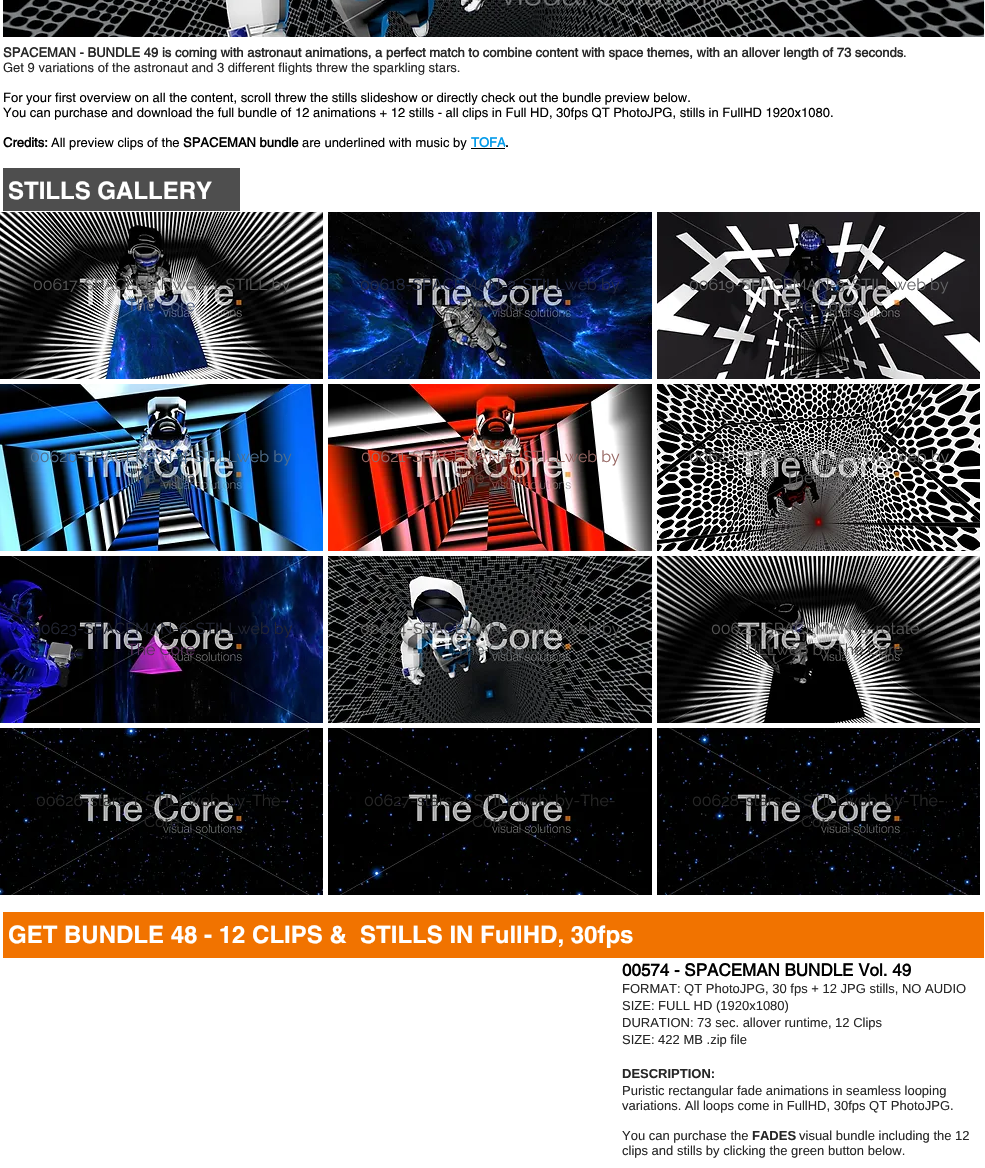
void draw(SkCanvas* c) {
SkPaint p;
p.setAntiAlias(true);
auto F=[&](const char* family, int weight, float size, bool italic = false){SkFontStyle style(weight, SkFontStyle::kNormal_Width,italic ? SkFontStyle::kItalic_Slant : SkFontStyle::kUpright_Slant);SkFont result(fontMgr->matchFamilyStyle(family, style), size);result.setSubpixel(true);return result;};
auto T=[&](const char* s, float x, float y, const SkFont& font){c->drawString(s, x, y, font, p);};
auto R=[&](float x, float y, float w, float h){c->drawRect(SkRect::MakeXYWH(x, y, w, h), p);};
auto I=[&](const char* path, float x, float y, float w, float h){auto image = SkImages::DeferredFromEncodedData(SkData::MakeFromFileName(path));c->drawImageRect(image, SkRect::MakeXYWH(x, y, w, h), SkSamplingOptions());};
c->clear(0xffffffff);
I("1.png",3,0,981,37);
auto f1 = F("helvetica",700,13);
p.setColor(0xff272727);
T("SPACEMAN - BUNDLE 49 is coming with astronaut animations, a perfect match to combine content with space themes, with an allover length of 73 seconds",3,57,f1);
auto f2 = F("helvetica",400,13);
T(".",903,57,f2);
T("Get 9 variations of the astronaut and 3 different flights threw the sparkling stars.",3,72,f2);
p.setColor(0xff000000);
T("For your first overview on all the content, scroll threw the stills slideshow or directly check out the bundle preview below.",3,102,f2);
T("You can purchase and download the full bundle of 12 animations + 12 stills - all clips in Full HD, 30fps QT PhotoJPG, stills in FullHD 1920x1080.",3,117,f2);
T("Credits:",3,147,f1);
T("All preview clips of the",51,147,f2);
T("SPACEMAN bundle",183,147,f1);
T("are underlined with music by",302,147,f2);
p.setColor(0xff049bea);
T("TOFA",471,147,f1);
p.setColor(0xff000000);
T(".",505,147,f1);
R(471,148,34,1);
p.setColor(0xffffffff);
R(505,146,1,4);
p.setColor(0xff4e4e4e);
R(3,168,237,43);
auto f3 = F("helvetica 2",700,24);
p.setColor(0xffffffff);
T("STILLS GALLERY",8,199,f3);
I("2.png",0,212,323,167);
auto f4 = F("Raleway",400,16);
p.setColor(0xff565656);
T("00617-SPACEMANweb-1-STILL by",33,290,f4);
p.setColor(0xff485777);
T("The Core",127,311,f4);
I("3.png",328,212,324,167);
p.setColor(0xff222941);
T("00618-SPACEMAN-2-STILLweb by",360,290,f4);
p.setColor(0xff3d404e);
T("The Core",456,311,f4);
I("4.png",657,212,323,167);
p.setColor(0xff636366);
T("00619-SPACEMAN-3-STILLweb by",689,290,f4);
p.setColor(0xff4b4c54);
T("The Core",785,311,f4);
I("5.png",0,384,323,167);
p.setColor(0xff4f6f8f);
T("00620-SPACEMAN-4-STILLweb by",30,462,f4);
p.setColor(0xff465567);
T("The Core",127,483,f4);
I("6.png",328,384,324,167);
p.setColor(0xff976864);
T("00621-SPACEMAN-5-STILLweb by",361,462,f4);
p.setColor(0xff704039);
T("The Core",456,483,f4);
I("7.png",657,384,323,167);
p.setColor(0xff6c6c6c);
T("00622-SPACEMAN-5-STILLweb by",689,462,f4);
p.setColor(0xff565656);
T("The Core",785,483,f4);
I("8.png",0,556,323,167);
p.setColor(0xff222532);
T("00623-SPACEMAN-6-STILLweb by",31,634,f4);
p.setColor(0xff59305d);
T("The Core",127,655,f4);
I("9.png",328,556,324,167);
p.setColor(0xff565656);
T("00624-SPACEMAN-7-STILLweb by",360,634,f4);
p.setColor(0xff505559);
T("The Core",456,655,f4);
I("10.png",657,556,323,167);
p.setColor(0xff565656);
T("00625-SPACEMAN-8-rotate-",711,634,f4);
p.setColor(0xff525150);
T("STILLweb by The Core",734,655,f4);
I("11.png",0,728,323,167);
p.setColor(0xff272727);
T("00626-stars-1-STILLweb-by-The-",36,806,f4);
T("Core",144,827,f4);
I("12.png",328,728,324,167);
T("00627-stars-2-STILLweb-by-The-",364,806,f4);
T("Core",472,827,f4);
I("13.png",657,728,323,167);
T("00628-stars-3-STILLweb-by-The-",692,806,f4);
T("Core",801,827,f4);
p.setColor(0xfff17300);
R(3,912,981,46);
p.setColor(0xffffffff);
T("GET BUNDLE 48 - 12 CLIPS &  STILLS IN FullHD, 30fps",8,943,f3);
auto f5 = F("helvetica",700,17);
p.setColor(0xff000000);
T("00574 - SPACEMAN BUNDLE Vol. 49",622,976,f5);
auto f6 = F("Liberation Sans",400,13);
p.setColor(0xff272727);
T("FORMAT: QT PhotoJPG, 30 fps + 12 JPG stills, NO AUDIO",622,993,f6);
T("SIZE: FULL HD (1920x1080)",622,1010,f6);
T("DURATION: 73 sec. allover runtime, 12 Clips",622,1027,f6);
T("SIZE: 422 MB .zip file",622,1044,f6);
auto f7 = F("Liberation Sans",700,13);
T("DESCRIPTION:",622,1078,f7);
T("Puristic rectangular fade animations in seamless looping",622,1095,f6);
T("variations. All loops come in FullHD, 30fps QT PhotoJPG.",622,1110,f6);
T("You can purchase the",622,1140,f6);
T("FADES",752,1140,f7);
T("visual bundle including the 12",799,1140,f6);
T("clips and stills by clicking the green button below.",622,1155,f6);
}
